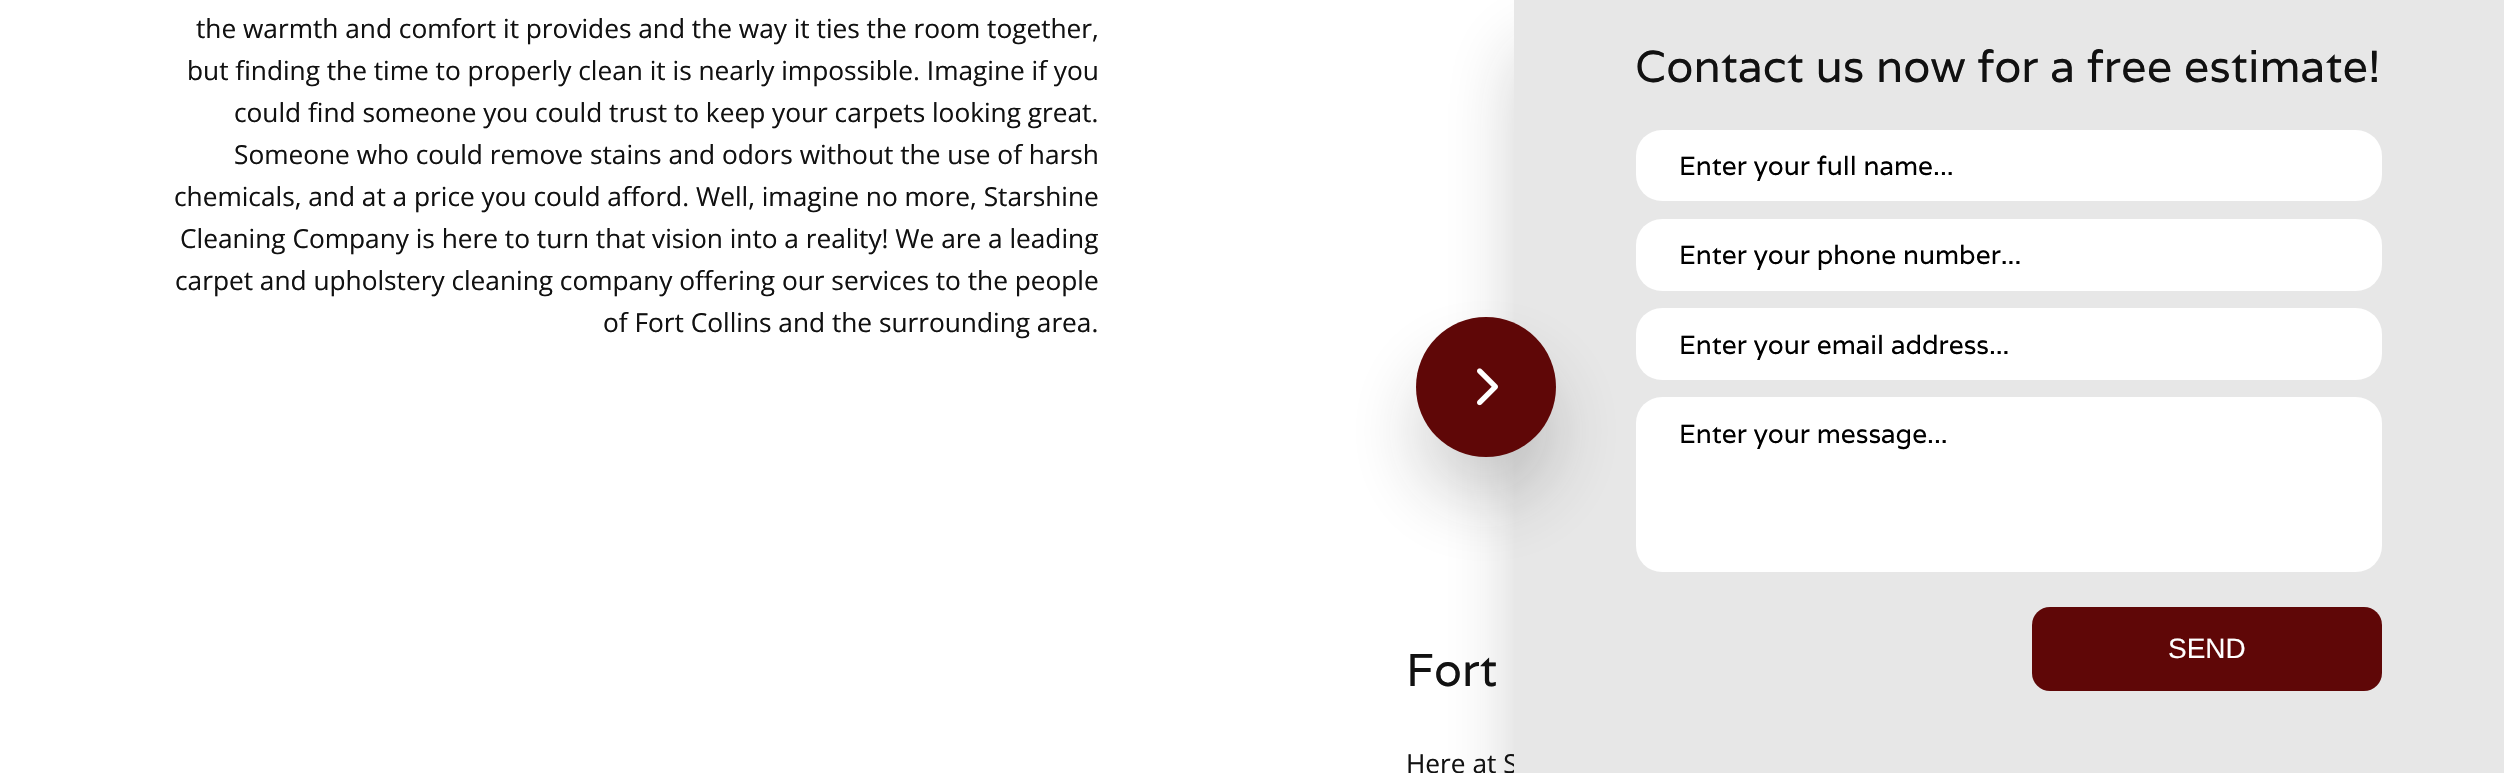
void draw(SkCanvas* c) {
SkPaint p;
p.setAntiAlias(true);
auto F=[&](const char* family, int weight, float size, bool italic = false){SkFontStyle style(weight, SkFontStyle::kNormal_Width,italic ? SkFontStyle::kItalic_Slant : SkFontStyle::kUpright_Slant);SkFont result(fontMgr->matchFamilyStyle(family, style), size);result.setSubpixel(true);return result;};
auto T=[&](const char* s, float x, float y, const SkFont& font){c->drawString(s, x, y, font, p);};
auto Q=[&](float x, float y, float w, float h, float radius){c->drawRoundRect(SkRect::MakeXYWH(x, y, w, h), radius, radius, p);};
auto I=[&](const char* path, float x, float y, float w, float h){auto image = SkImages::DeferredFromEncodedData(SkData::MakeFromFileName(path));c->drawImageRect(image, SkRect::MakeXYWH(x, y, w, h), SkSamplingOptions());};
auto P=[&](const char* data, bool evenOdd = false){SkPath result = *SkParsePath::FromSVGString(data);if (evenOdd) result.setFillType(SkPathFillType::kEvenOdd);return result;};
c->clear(0xffffffff);
auto f1 = F("Open Sans",400,26.25);
p.setColor(0xff111111);
T("the warmth and comfort it provides and the way it ties the room together,",196,38,f1);
T("but finding the time to properly clean it is nearly impossible. Imagine if you",187,80,f1);
T("could find someone you could trust to keep your carpets looking great.",234,122,f1);
T("Someone who could remove stains and odors without the use of harsh",234,164,f1);
T("chemicals, and at a price you could afford. Well, imagine no more, Starshine",174,206,f1);
T("Cleaning Company is here to turn that vision into a reality! We are a leading",180,248,f1);
T("carpet and upholstery cleaning company offering our services to the people",175,290,f1);
T("of Fort Collins and the surrounding area.",603,332,f1);
auto f2 = F("Varela",400,46);
T("Fort",1406,686,f2);
T("Here at S",1406,773,f1);
p.setColor(0x331c1c1c);
p.setMaskFilter(SkMaskFilter::MakeBlur(kNormal_SkBlurStyle, 35));
c->drawRoundRect(SkRect::MakeXYWH(1514,47,990,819),26,26,p);
p.setMaskFilter(nullptr);
p.setColor(0xffe7e7e7);
c->drawPath(P("M1532-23h972v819h-964c-14.5 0-26-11.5-26-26v-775c0-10 8-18 18-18z"),p);
p.setColor(0xffffffff);
Q(1636,219,746,72,26);
Q(1636,308,746,72,26);
Q(1636,397,746,175,26);
p.setColor(0x331c1c1c);
p.setMaskFilter(SkMaskFilter::MakeBlur(kNormal_SkBlurStyle, 35));
c->drawRoundRect(SkRect::MakeXYWH(1416,361,140,140),70,70,p);
p.setMaskFilter(nullptr);
p.setColor(0xff5f0707);
c->drawCircle(1486,387,70,p);
I("1.png",1477,368,21,38);
auto f3 = F("Varela",400,44.75);
p.setColor(0xff111111);
T("Contact us now for a free estimate!",1635,82,f3);
p.setColor(0xffffffff);
Q(1636,130,746,71,26);
auto f4 = F("Varela",400,26.25);
p.setColor(0xff000000);
T("Enter your full name...",1679,175,f4);
T("Enter your phone number...",1679,264,f4);
T("Enter your email address...",1679,354,f4);
T("Enter your message...",1679,443,f4);
p.setColor(0xff5f0707);
Q(2032,607,350,84,18);
auto f5 = F("Liberation Sans",400,28);
p.setColor(0xffffffff);
T("SEND",2168,658,f5);
}
